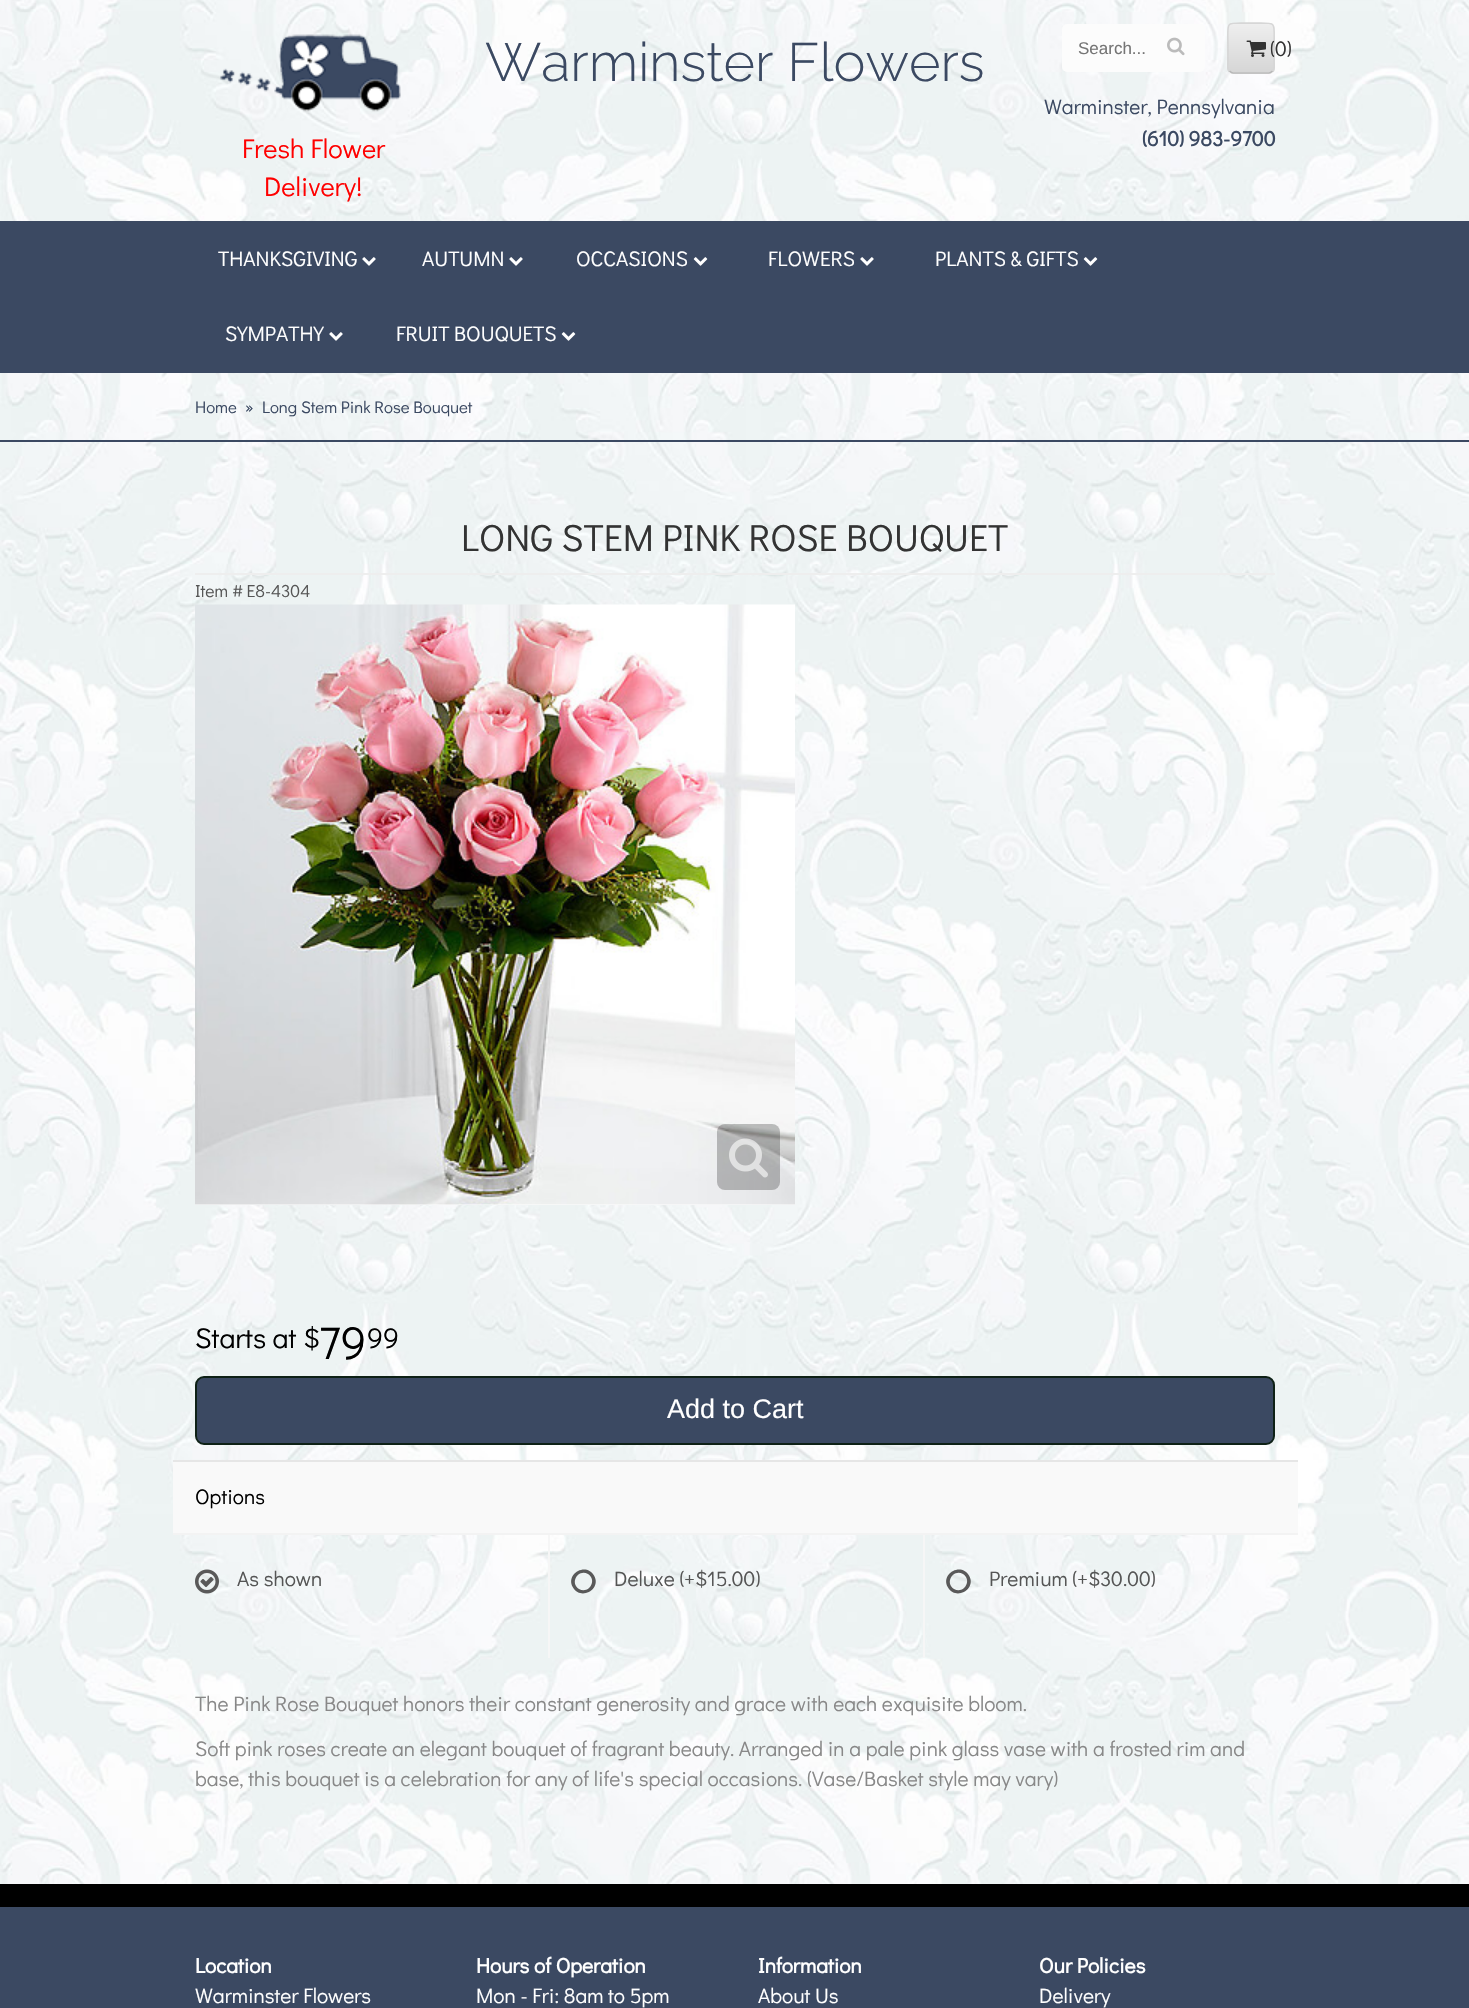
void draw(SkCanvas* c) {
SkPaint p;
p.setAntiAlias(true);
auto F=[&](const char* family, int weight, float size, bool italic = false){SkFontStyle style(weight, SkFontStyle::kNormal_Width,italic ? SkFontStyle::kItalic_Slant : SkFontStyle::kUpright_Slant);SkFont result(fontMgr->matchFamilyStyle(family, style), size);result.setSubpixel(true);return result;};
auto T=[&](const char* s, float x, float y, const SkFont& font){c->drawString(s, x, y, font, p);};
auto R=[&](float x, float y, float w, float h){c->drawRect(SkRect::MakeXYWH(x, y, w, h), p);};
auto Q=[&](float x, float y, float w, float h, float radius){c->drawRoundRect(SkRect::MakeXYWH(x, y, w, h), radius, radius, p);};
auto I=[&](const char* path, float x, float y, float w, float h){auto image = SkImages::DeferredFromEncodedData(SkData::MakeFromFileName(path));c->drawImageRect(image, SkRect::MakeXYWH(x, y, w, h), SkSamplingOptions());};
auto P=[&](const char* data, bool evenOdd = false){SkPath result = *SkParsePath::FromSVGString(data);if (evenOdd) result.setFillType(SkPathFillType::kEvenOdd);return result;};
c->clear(0xffffffff);
I("1.png",0,0,1469,1884);
auto f1 = F("Raleway",300,54);
p.setColor(0xff3b4962);
T("Warminster Flowers",485,81,f1);
p.setColor(0xfffcfcfc);
Q(1062,24,143,48,5);
auto f2 = F("Liberation Sans",400,17);
p.setColor(0xff757575);
T("Search...",1078,54,f2);
I("2.png",1167,37,18,19);
c->save();
c->clipPath(P("M1233 23h36c3.5 0 6 2.5 6 6v39c0 3.5-2.5 6-6 6h-36c-3.5 0-6-2.5-6-6v-39c0-3.5 2.5-6 6-6z"),true);
{
const SkColor colors[] = {0xffeeeeee,0xffd6d6d6};
const float stops[] = {0,1};
const SkPoint ends[] = {{1251,-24}, {1251,24}};
p.setShader(SkGradientShader::MakeLinear(ends, colors, stops, 2, SkTileMode::kClamp));
p.setAlpha(255);
}
R(1227,23,48,1);
{
const SkColor colors[] = {0xffeeeeee,0xffd6d6d6};
const float stops[] = {0,1};
const SkPoint ends[] = {{1251,24}, {1251,72}};
p.setShader(SkGradientShader::MakeLinear(ends, colors, stops, 2, SkTileMode::kClamp));
p.setAlpha(255);
}
R(1227,24,48,48);
{
const SkColor colors[] = {0xffeeeeee,0xffd6d6d6};
const float stops[] = {0,1};
const SkPoint ends[] = {{1251,72}, {1251,120}};
p.setShader(SkGradientShader::MakeLinear(ends, colors, stops, 2, SkTileMode::kClamp));
p.setAlpha(255);
}
R(1227,72,48,2);
c->restore();
p.setStroke(true);
p.setStrokeWidth(1.5);
p.setShader(nullptr);
p.setColor(0xffb6b6b6);
c->drawPath(P("M1272.5 71c-1 1-2 2-3.5 2h-36c-1.5 0-2.5-1-3.5-2"),p);
p.setColor(0xffd6d6d6);
c->drawPath(P("M1229.5 71c-2.5-2.5-1.5-7-1.5-10v-13c0-28.5-4.5-25 23-25c27.5 0 23-3.5 23 25v13c0 3 1 7.5-1.5 10"),p);
I("3.png",1246,40,20,17);
auto f3 = F("Didact Gothic",400,21);
p.setStroke(false);
p.setColor(0xff333333);
T("(0)",1270,56,f3);
p.setColor(0xff3b4962);
T("Warminster, Pennsylvania",1044,114,f3);
auto f4 = F("Didact Gothic",700,21);
T("(610) 983-9700",1142,146,f4);
I("4.png",220,34,181,78);
auto f5 = F("Didact Gothic",400,27);
p.setColor(0xffff0000);
T("Fresh Flower",242,158,f5);
T("Delivery!",264,196,f5);
p.setColor(0xff3b4962);
R(0,221,1469,152);
p.setColor(0xffffffff);
T("THANKSGIVING",218,266,f3);
I("5.png",362,257,14,9);
T("AUTUMN",422,266,f3);
I("5.png",509,257,14,9);
T("OCCASIONS",576,266,f3);
I("6.png",693,257,15,9);
T("FLOWERS",768,266,f3);
I("5.png",860,257,14,9);
T("PLANTS & GIFTS",935,266,f3);
I("6.png",1083,257,15,9);
T("SYMPATHY",225,341,f3);
I("5.png",329,332,14,9);
T("FRUIT BOUQUETS",396,341,f3);
I("6.png",561,332,15,9);
p.setColor(0xff3b4962);
R(0,440,1469,2);
auto f6 = F("Didact Gothic",400,16.75);
T("Home",195,413,f6);
T("»",245,413,f6);
T("Long Stem Pink Rose Bouquet",262,413,f6);
p.setColor(0xffeeeeee);
R(195,573,1080,2);
auto f7 = F("Didact Gothic",400,37.75);
p.setColor(0xff333333);
T("LONG STEM PINK ROSE BOUQUET",461,551,f7);
auto f8 = F("Didact Gothic",400,17.5);
p.setColor(0xff555555);
T("Item # E8-4304",195,597,f8);
p.setColor(0xffffffff);
R(195,1204,600,1);
I("7.png",195,604,600,601);
p.setColor(0x3d000000);
Q(717,1124,63,66,8);
I("8.png",729,1138,39,40);
auto f9 = F("Didact Gothic",400,28.5);
p.setColor(0xff000000);
T("Starts at $",195,1348,f9);
auto f10 = F("Didact Gothic",400,46);
T("79",319,1359,f10);
T("99",367,1348,f9);
p.setColor(0xff3b4962);
c->drawRoundRect(SkRect::MakeXYWH(196,1377,1078,67),8,8,p);
p.setStroke(true);
p.setStrokeWidth(2);
p.setColor(0xff0e2116);
c->drawRoundRect(SkRect::MakeXYWH(196,1377,1078,67),8,8,p);
auto f11 = F("Liberation Sans",400,27);
p.setStroke(false);
p.setColor(0xffffffff);
T("Add to Cart",667,1418,f11);
p.setColor(0xfff9f9f9);
R(173,1462,1125,71);
p.setColor(0xffe6e6e6);
R(173,1460,1125,2);
p.setColor(0xfff3f3f3);
R(173,1533,1125,2);
p.setColor(0xff000000);
T("Options",195,1504,f3);
I("9.png",195,1569,24,25);
p.setColor(0xff555555);
T("As shown",237,1586,f3);
p.setColor(0xfff6f6f6);
R(548,1535,2,123);
p.setColor(0xff595959);
c->drawPath(P("M588 1574c-10-5.5-18.5 9-9 15c10 5.5 18.5-9 9-15zm6 1.5c8 13.5-13 25.5-21 12c-8-13.5 13-25.5 21-12z"),p);
p.setColor(0xff555555);
T("Deluxe (+$15.00)",614,1586,f3);
p.setColor(0xfff6f6f6);
R(923,1535,2,123);
p.setColor(0xff595959);
c->drawPath(P("M963 1574c-10-5.5-18.5 9-9 15c10 5.5 18.5-9 9-15zm6 1.5c8 13.5-13 25.5-21 12c-8-13.5 13-25.5 21-12z"),p);
p.setColor(0xff555555);
T("Premium (+$30.00)",989,1586,f3);
p.setColor(0xff888888);
T("The Pink Rose Bouquet honors their constant generosity and grace with each exquisite bloom.",195,1711,f3);
T("Soft pink roses create an elegant bouquet of fragrant beauty. Arranged in a pale pink glass vase with a frosted rim and",195,1756,f3);
T("base, this bouquet is a celebration for any of life's special occasions. (Vase/Basket style may vary)",195,1786,f3);
p.setColor(0xff3b4962);
R(0,1907,1469,101);
p.setColor(0xff000000);
R(0,1884,1469,23);
p.setColor(0xffffffff);
T("Location",195,1973,f4);
T("Warminster Flowers",195,2003,f3);
T("Hours of Operation",476,1973,f4);
T("Mon - Fri: 8am to 5pm",476,2003,f3);
T("Information",758,1973,f4);
T("About Us",758,2003,f3);
T("Our Policies",1039,1973,f4);
T("Delivery",1039,2003,f3);
}
